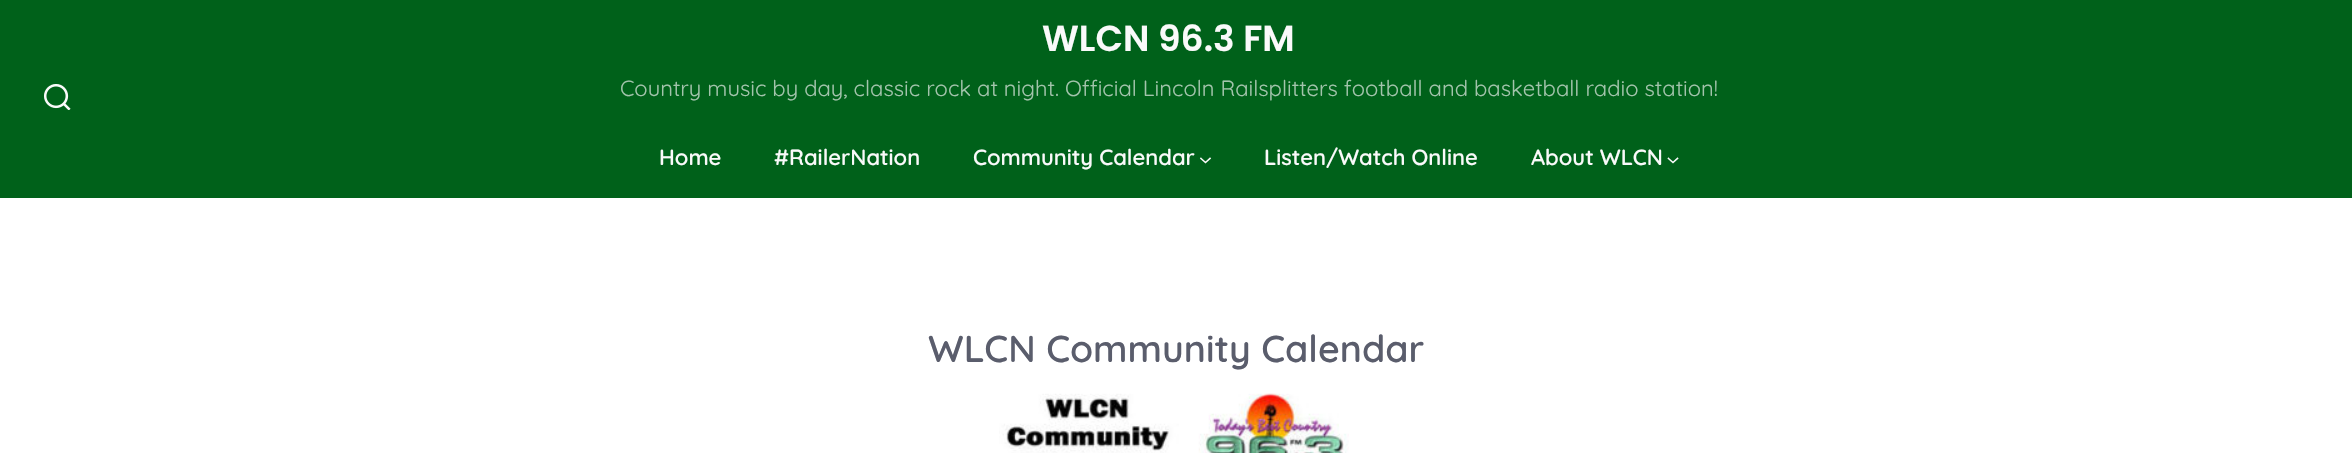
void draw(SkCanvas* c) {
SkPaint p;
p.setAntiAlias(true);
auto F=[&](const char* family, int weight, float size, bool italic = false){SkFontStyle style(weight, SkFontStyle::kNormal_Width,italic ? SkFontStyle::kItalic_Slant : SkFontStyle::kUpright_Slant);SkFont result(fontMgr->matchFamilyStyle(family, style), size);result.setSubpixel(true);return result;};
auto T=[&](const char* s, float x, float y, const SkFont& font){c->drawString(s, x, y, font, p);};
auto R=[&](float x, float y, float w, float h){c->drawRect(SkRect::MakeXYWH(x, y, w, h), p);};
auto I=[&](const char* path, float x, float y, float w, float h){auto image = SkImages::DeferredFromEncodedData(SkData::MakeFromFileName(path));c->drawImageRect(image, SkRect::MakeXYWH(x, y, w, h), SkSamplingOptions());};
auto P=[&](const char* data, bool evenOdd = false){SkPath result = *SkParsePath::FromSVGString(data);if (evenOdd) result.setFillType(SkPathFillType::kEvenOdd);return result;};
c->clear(0xffffffff);
p.setColor(0xff00611a);
R(0,0,2352,198);
I("1.png",44,84,27,26);
auto f1 = F("Poppins",600,36);
p.setColor(0xfffafafa);
T("WLCN 96.3 FM",1042,51,f1);
auto f2 = F("Quicksand",400,22);
p.setColor(0xffa3c4ac);
T("Country music by day, classic rock at night. Official Lincoln Railsplitters football and basketball radio station!",620,96,f2);
auto f3 = F("Quicksand",600,22);
p.setColor(0xfffafafa);
T("Home",659,165,f3);
T("#RailerNation",774,165,f3);
T("Community Calendar",973,165,f3);
p.setStroke(true);
p.setStrokeWidth(1.6);
p.setStrokeCap(SkPaint::kSquare_Cap);
c->drawPath(P("M1201 158.5l4.5 4l4.5-4"),p);
p.setStroke(false);
T("Listen/Watch Online",1264,165,f3);
T("About WLCN",1531,165,f3);
p.setStroke(true);
c->drawPath(P("M1668.5 158.5l4.5 4l4.5-4"),p);
auto f4 = F("Quicksand",600,37.5);
p.setStroke(false);
p.setColor(0xff5a5d6c);
T("WLCN Community Calendar",928,362,f4);
I("2.png",999,393,350,60);
}
